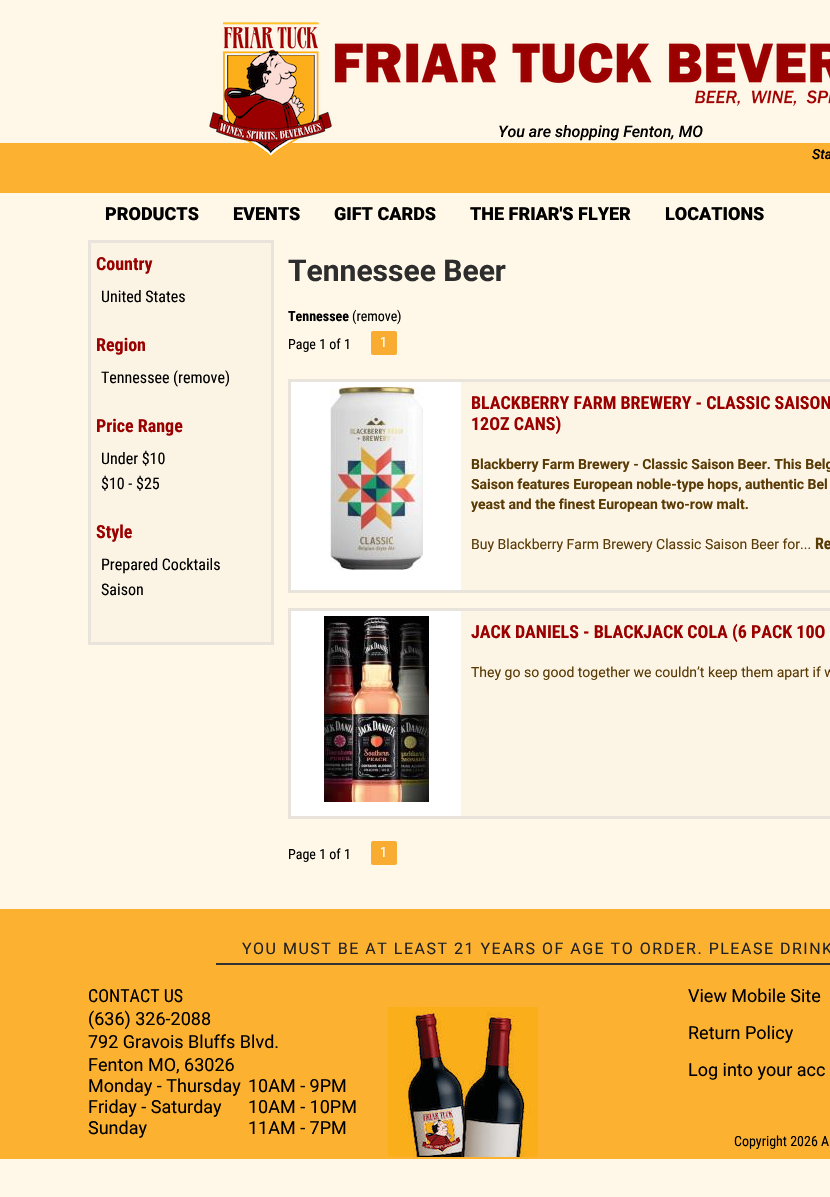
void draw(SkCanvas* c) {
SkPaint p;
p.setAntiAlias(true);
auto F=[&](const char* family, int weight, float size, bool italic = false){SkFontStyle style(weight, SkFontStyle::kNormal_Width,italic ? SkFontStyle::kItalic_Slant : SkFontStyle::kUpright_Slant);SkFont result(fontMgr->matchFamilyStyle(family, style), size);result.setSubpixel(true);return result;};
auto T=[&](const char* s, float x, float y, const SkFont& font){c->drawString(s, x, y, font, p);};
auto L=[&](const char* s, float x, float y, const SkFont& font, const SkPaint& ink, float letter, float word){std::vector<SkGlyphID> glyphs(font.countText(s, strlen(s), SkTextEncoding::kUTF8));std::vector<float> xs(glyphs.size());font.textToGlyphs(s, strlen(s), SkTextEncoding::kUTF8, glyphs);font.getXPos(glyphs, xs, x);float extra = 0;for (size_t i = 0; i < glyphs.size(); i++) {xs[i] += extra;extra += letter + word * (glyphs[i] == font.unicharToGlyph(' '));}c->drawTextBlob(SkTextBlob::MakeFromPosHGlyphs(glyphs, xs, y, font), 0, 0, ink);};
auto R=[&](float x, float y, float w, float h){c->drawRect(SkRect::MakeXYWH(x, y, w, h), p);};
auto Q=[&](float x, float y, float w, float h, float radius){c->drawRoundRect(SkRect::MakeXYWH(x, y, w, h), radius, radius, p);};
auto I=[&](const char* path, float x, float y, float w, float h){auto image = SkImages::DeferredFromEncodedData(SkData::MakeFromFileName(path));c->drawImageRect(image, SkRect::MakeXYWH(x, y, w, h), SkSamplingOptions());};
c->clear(0xfffff8e8);
auto f1 = F("Roboto",500,16,true);
p.setColor(0xff000000);
T("You are shopping Fenton, MO",498,137,f1);
p.setColor(0xfffcb131);
R(0,143,830,50);
auto f2 = F("Roboto",500,14,true);
p.setColor(0xff000000);
T("Sta",812,159,f2);
I("1.png",209,22,621,136);
auto f3 = F("Roboto",900,18);
T("PRODUCTS",105,220,f3);
T("EVENTS",233,220,f3);
T("GIFT CARDS",334,220,f3);
T("THE FRIAR'S FLYER",470,220,f3);
T("LOCATIONS",665,220,f3);
p.setColor(0xfffbf4e5);
c->drawRect(SkRect::MakeXYWH(89.5,241.5,183,402),p);
p.setStroke(true);
p.setStrokeWidth(3);
p.setColor(0xffe8e4db);
c->drawRect(SkRect::MakeXYWH(89.5,241.5,183,402),p);
auto f4 = F("Roboto Condensed",700,18);
p.setStroke(false);
p.setColor(0xff9a0000);
T("Country",96,270,f4);
auto f5 = F("Roboto Condensed",400,16);
p.setColor(0xff000000);
T("United States",101,302,f5);
p.setColor(0xff9a0000);
T("Region",96,351,f4);
p.setColor(0xff000000);
T("Tennessee (remove)",101,383,f5);
p.setColor(0xff9a0000);
T("Price Range",96,432,f4);
p.setColor(0xff000000);
T("Under $10",101,464,f5);
T("$10 - $25",101,489,f5);
p.setColor(0xff9a0000);
T("Style",96,538,f4);
p.setColor(0xff000000);
T("Prepared Cocktails",101,570,f5);
T("Saison",101,595,f5);
auto f6 = F("Roboto",700,30);
p.setColor(0xff2d2d2d);
T("Tennessee Beer",288,281,f6);
auto f7 = F("Roboto Condensed",700,14);
p.setColor(0xff000000);
T("Tennessee",288,321,f7);
auto f8 = F("Roboto Condensed",400,14);
T("(remove",352,321,f8);
T(")",397,321,f8);
T("Page 1 of 1",288,349,f8);
p.setColor(0xfff8ad32);
Q(371,331,26,24,2);
p.setColor(0xffffffff);
T("1",380,347,f8);
p.setStroke(true);
p.setColor(0xffe8e4db);
c->drawRect(SkRect::MakeXYWH(289.5,380.5,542,211),p);
p.setStroke(false);
p.setColor(0xfffcf4e5);
R(461,382,369,208);
p.setColor(0xffffffff);
R(291,382,170,208);
I("2.png",330,387,93,183);
p.setColor(0xff9a0000);
T("BLACKBERRY FARM BREWERY - CLASSIC SAISON",471,409,f4);
T("12OZ CANS)",471,430,f4);
auto f9 = F("Roboto",700,14);
p.setColor(0xff5a3b05);
T("Blackberry Farm Brewery - Classic Saison Beer. This Belg",471,469,f9);
T("Saison features European noble-type hops, authentic Bel",471,489,f9);
T("yeast and the finest European two-row malt.",471,509,f9);
auto f10 = F("Roboto",400,14);
T("Buy Blackberry Farm Brewery Classic Saison Beer for...",471,549,f10);
auto f11 = F("Roboto Condensed",700,16);
T("Re",815,549,f11);
p.setStroke(true);
p.setColor(0xffe8e4db);
c->drawRect(SkRect::MakeXYWH(289.5,609.5,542,208),p);
p.setStroke(false);
p.setColor(0xfffcf4e5);
R(461,611,369,205);
p.setColor(0xffffffff);
R(291,611,170,205);
I("3.png",324,616,105,186);
p.setColor(0xff9a0000);
T("JACK DANIELS - BLACKJACK COLA (6 PACK 10O",471,638,f4);
p.setColor(0xff5a3b05);
T("They go so good together we couldn’t keep them apart if w",471,677,f10);
p.setColor(0xff000000);
T("Page 1 of 1",288,859,f8);
p.setColor(0xfff8ad32);
Q(371,841,26,24,2);
p.setColor(0xffffffff);
T("1",380,857,f8);
p.setColor(0xfffcb131);
R(0,909,830,250);
p.setColor(0xff333333);
R(216,963,614,2);
auto f12 = F("Roboto",400,16);
p.setColor(0xff222222);
L("YOU MUST BE AT LEAST 21 YEARS OF AGE TO ORDER. PLEASE DRINK",242,954,f12,p,1.5,0);
auto f13 = F("Roboto Condensed",400,18);
p.setColor(0xff000000);
T("CONTACT US",88,1002,f13);
auto f14 = F("Roboto",400,18);
T("(636) 326-2088",88,1025,f14);
T("792 Gravois Bluffs Blvd.",88,1048,f14);
T("Fenton MO, 63026",88,1071,f14);
T("Monday - Thursday",88,1092,f14);
T("10AM - 9PM",248,1092,f14);
T("Friday - Saturday",88,1113,f14);
T("10AM - 10PM",248,1113,f14);
T("Sunday",88,1134,f14);
T("11AM - 7PM",248,1134,f14);
I("4.png",388,1007,150,150);
T("View Mobile Site",688,1002,f14);
T("Return Policy",688,1039,f14);
T("Log into your acc",688,1076,f14);
T("Copyright 2026 A",734,1146,f8);
}
